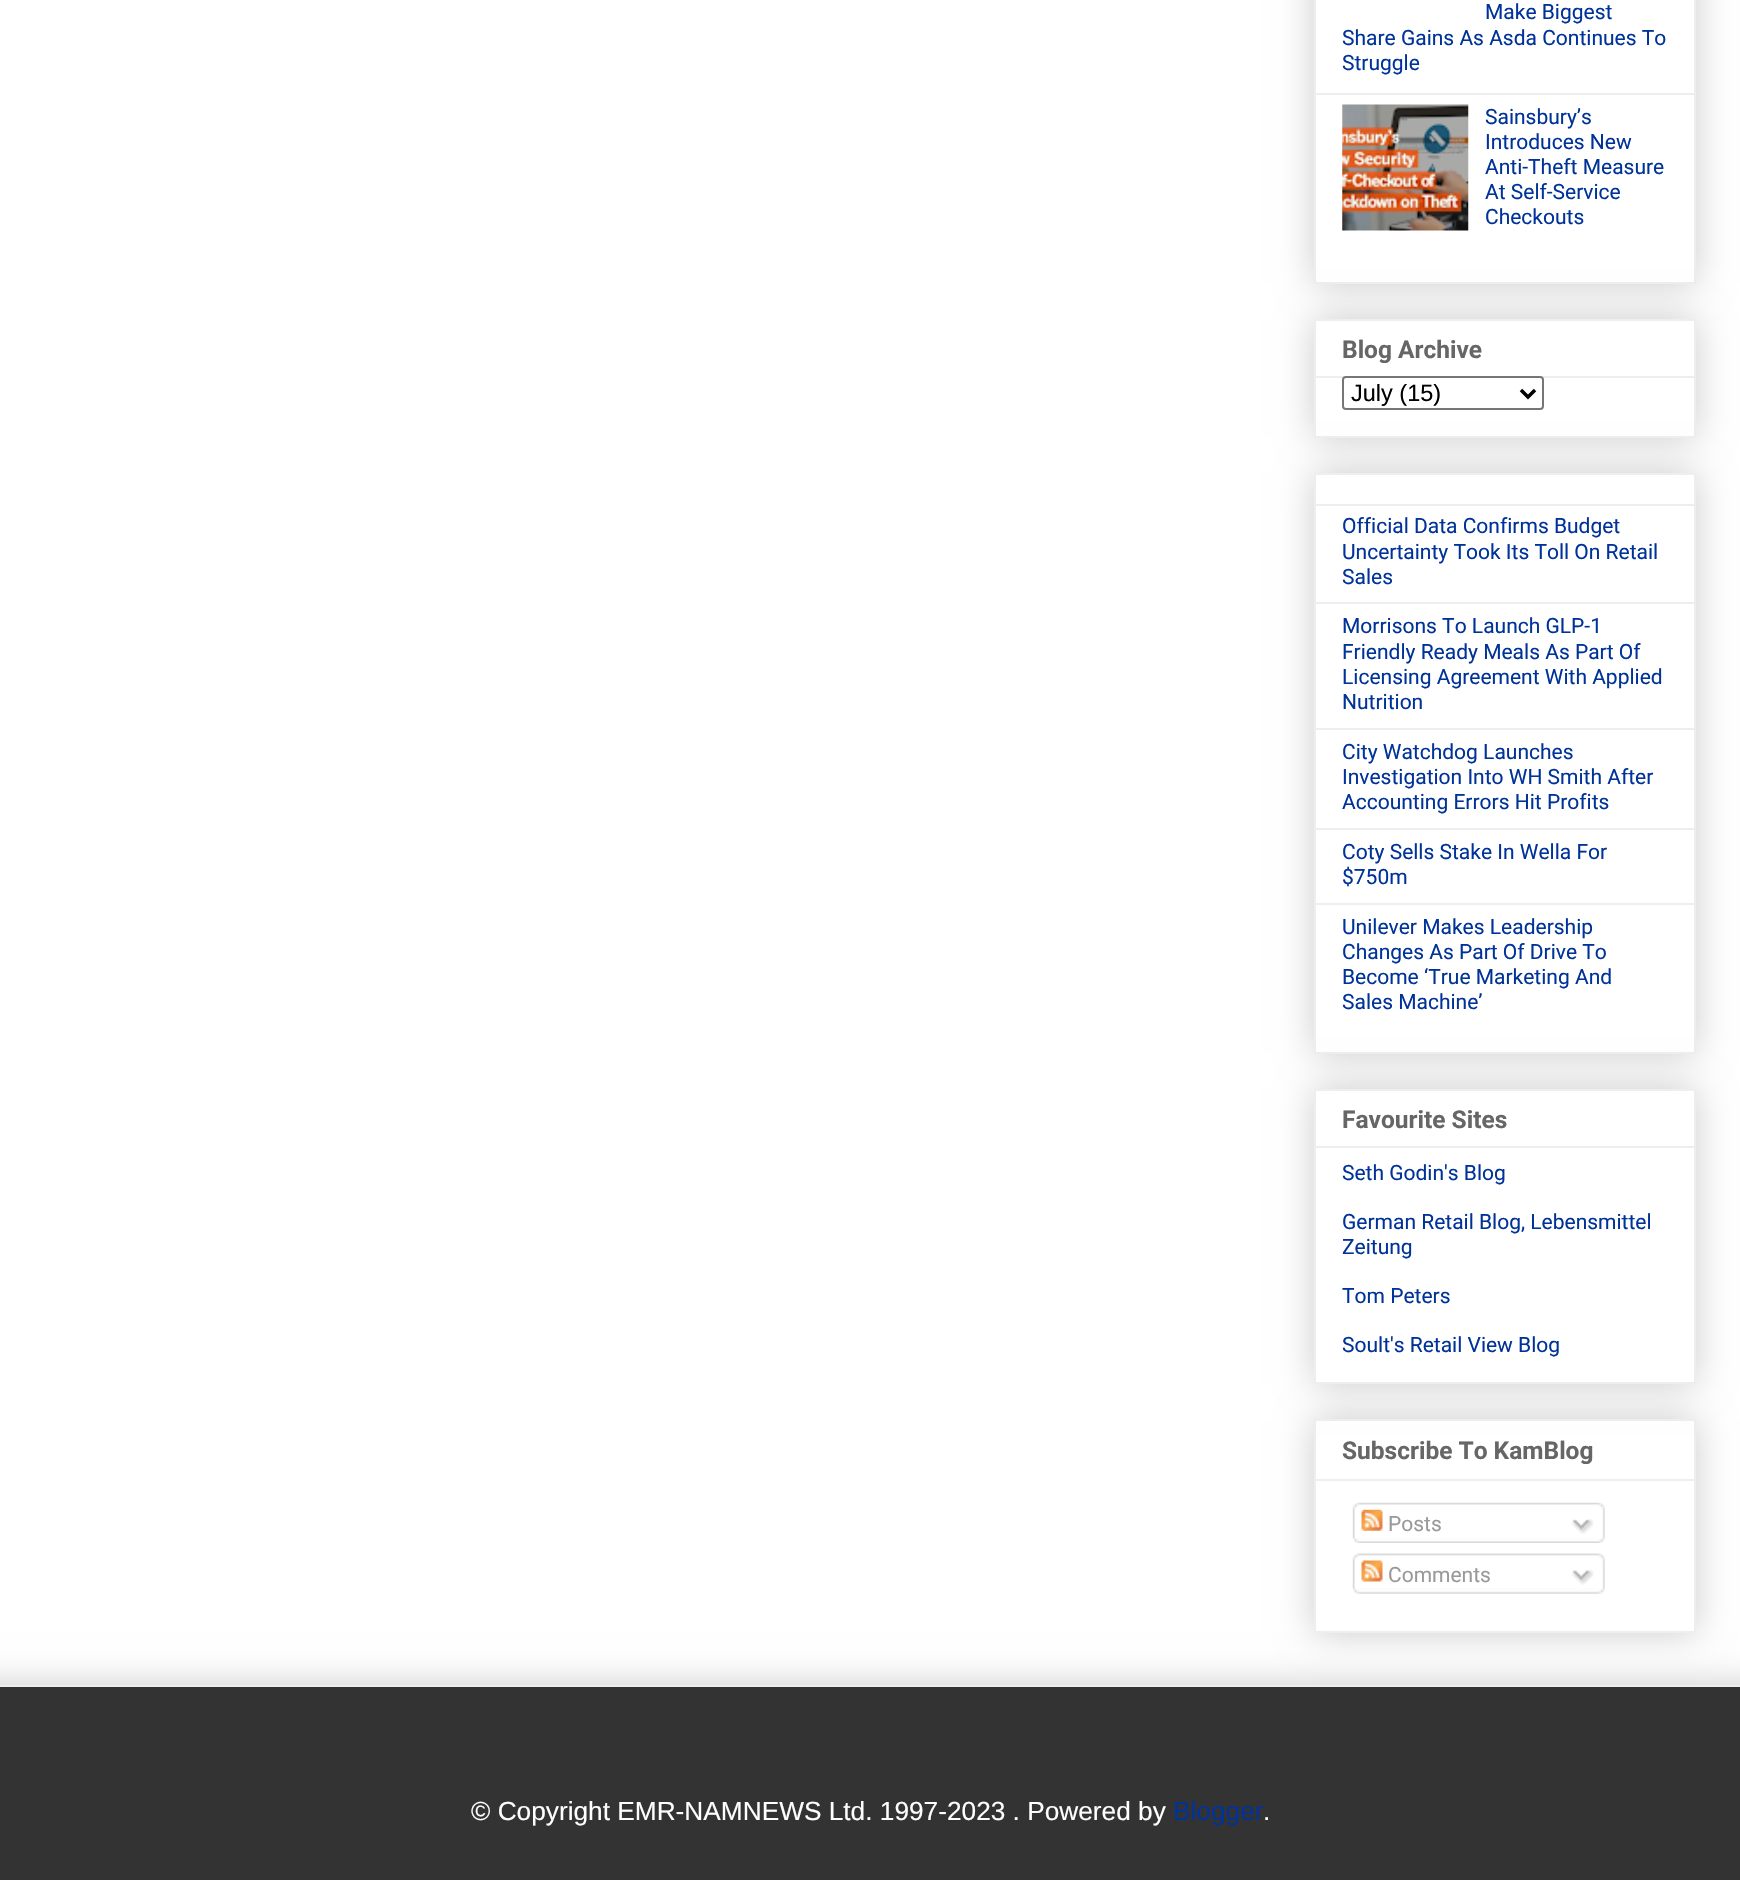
void draw(SkCanvas* c) {
SkPaint p;
p.setAntiAlias(true);
auto F=[&](const char* family, int weight, float size, bool italic = false){SkFontStyle style(weight, SkFontStyle::kNormal_Width,italic ? SkFontStyle::kItalic_Slant : SkFontStyle::kUpright_Slant);SkFont result(fontMgr->matchFamilyStyle(family, style), size);result.setSubpixel(true);return result;};
auto T=[&](const char* s, float x, float y, const SkFont& font){c->drawString(s, x, y, font, p);};
auto R=[&](float x, float y, float w, float h){c->drawRect(SkRect::MakeXYWH(x, y, w, h), p);};
auto I=[&](const char* path, float x, float y, float w, float h){auto image = SkImages::DeferredFromEncodedData(SkData::MakeFromFileName(path));c->drawImageRect(image, SkRect::MakeXYWH(x, y, w, h), SkSamplingOptions());};
auto P=[&](const char* data, bool evenOdd = false){SkPath result = *SkParsePath::FromSVGString(data);if (evenOdd) result.setFillType(SkPathFillType::kEvenOdd);return result;};
c->clear(0xffffffff);
p.setColor(0x33000000);
p.setMaskFilter(SkMaskFilter::MakeBlur(kNormal_SkBlurStyle, 17.5));
c->drawRect(SkRect::MakeXYWH(1314,-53,382,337),p);
p.setMaskFilter(nullptr);
p.setColor(0xffffffff);
c->drawRect(SkRect::MakeXYWH(1315,-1,380,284),p);
p.setStroke(true);
p.setStrokeWidth(2);
p.setColor(0xffeeeeee);
c->drawRect(SkRect::MakeXYWH(1315,-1,380,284),p);
auto f1 = F("Roboto",400,21);
p.setStroke(false);
p.setColor(0xff003399);
T("Make Biggest",1485,19,f1);
T("Share Gains As Asda Continues To",1342,45,f1);
T("Struggle",1342,70,f1);
p.setColor(0xffeeeeee);
R(1316,93,378,2);
I("1.png",1342,104,127,127);
p.setColor(0xff003399);
T("Sainsbury’s",1485,124,f1);
T("Introduces New",1485,149,f1);
T("Anti-Theft Measure",1485,174,f1);
T("At Self-Service",1485,199,f1);
T("Checkouts",1485,224,f1);
p.setColor(0x33000000);
p.setMaskFilter(SkMaskFilter::MakeBlur(kNormal_SkBlurStyle, 17.5));
c->drawRect(SkRect::MakeXYWH(1314,319,382,119),p);
p.setMaskFilter(nullptr);
p.setColor(0xffffffff);
c->drawRect(SkRect::MakeXYWH(1315,320,380,117),p);
p.setStroke(true);
p.setColor(0xffeeeeee);
c->drawRect(SkRect::MakeXYWH(1315,320,380,117),p);
auto f2 = F("Roboto",700,24.5);
p.setStroke(false);
p.setColor(0xff666666);
T("Blog Archive",1342,358,f2);
p.setColor(0xffeeeeee);
R(1316,376,378,2);
p.setColor(0xffffffff);
c->drawRoundRect(SkRect::MakeXYWH(1343,377,200,32),3,3,p);
p.setStroke(true);
p.setColor(0xff767676);
c->drawRoundRect(SkRect::MakeXYWH(1343,377,200,32),3,3,p);
p.setStrokeWidth(3.5);
p.setColor(0xff000000);
c->drawPath(P("M1521 390l7 7l7-7"),p);
auto f3 = F("Liberation Sans",400,23.5);
p.setStroke(false);
T("July (15)",1351,401,f3);
p.setColor(0x33000000);
p.setMaskFilter(SkMaskFilter::MakeBlur(kNormal_SkBlurStyle, 17.5));
c->drawRect(SkRect::MakeXYWH(1314,473,382,581),p);
p.setMaskFilter(nullptr);
p.setColor(0xffffffff);
c->drawRect(SkRect::MakeXYWH(1315,474,380,579),p);
p.setStroke(true);
p.setStrokeWidth(2);
p.setColor(0xffeeeeee);
c->drawRect(SkRect::MakeXYWH(1315,474,380,579),p);
p.setStroke(false);
R(1316,504,378,2);
p.setColor(0xff003399);
T("Official Data Confirms Budget",1342,533,f1);
T("Uncertainty Took Its Toll On Retail",1342,559,f1);
T("Sales",1342,584,f1);
p.setColor(0xffeeeeee);
R(1316,602,378,2);
p.setColor(0xff003399);
T("Morrisons To Launch GLP-1",1342,633,f1);
T("Friendly Ready Meals As Part Of",1342,659,f1);
T("Licensing Agreement With Applied",1342,684,f1);
T("Nutrition",1342,709,f1);
p.setColor(0xffeeeeee);
R(1316,728,378,2);
p.setColor(0xff003399);
T("City Watchdog Launches",1342,759,f1);
T("Investigation Into WH Smith After",1342,784,f1);
T("Accounting Errors Hit Profits",1342,809,f1);
p.setColor(0xffeeeeee);
R(1316,828,378,2);
p.setColor(0xff003399);
T("Coty Sells Stake In Wella For",1342,859,f1);
T("$750m",1342,884,f1);
p.setColor(0xffeeeeee);
R(1316,903,378,2);
p.setColor(0xff003399);
T("Unilever Makes Leadership",1342,934,f1);
T("Changes As Part Of Drive To",1342,959,f1);
T("Become ‘True Marketing And",1342,984,f1);
T("Sales Machine’",1342,1009,f1);
p.setColor(0x33000000);
p.setMaskFilter(SkMaskFilter::MakeBlur(kNormal_SkBlurStyle, 17.5));
c->drawRect(SkRect::MakeXYWH(1314,1419,382,214),p);
p.setMaskFilter(nullptr);
p.setColor(0xffffffff);
c->drawRect(SkRect::MakeXYWH(1315,1420,380,212),p);
p.setStroke(true);
p.setColor(0xffeeeeee);
c->drawRect(SkRect::MakeXYWH(1315,1420,380,212),p);
p.setStroke(false);
p.setColor(0x33000000);
p.setMaskFilter(SkMaskFilter::MakeBlur(kNormal_SkBlurStyle, 17.5));
c->drawRect(SkRect::MakeXYWH(1314,1089,382,295),p);
p.setMaskFilter(nullptr);
p.setColor(0xffffffff);
c->drawRect(SkRect::MakeXYWH(1315,1090,380,293),p);
p.setStroke(true);
p.setColor(0xffeeeeee);
c->drawRect(SkRect::MakeXYWH(1315,1090,380,293),p);
p.setStroke(false);
p.setColor(0xff666666);
T("Favourite Sites",1342,1128,f2);
p.setColor(0xffeeeeee);
R(1316,1146,378,2);
p.setColor(0xff003399);
T("Seth Godin's Blog",1342,1180,f1);
T("German Retail Blog, Lebensmittel",1342,1229,f1);
T("Zeitung",1342,1254,f1);
T("Tom Peters",1342,1303,f1);
T("Soult's Retail View Blog",1342,1352,f1);
p.setColor(0xff666666);
T("Subscribe To KamBlog",1342,1459,f2);
p.setColor(0xffeeeeee);
R(1316,1479,378,2);
I("2.png",1352,1502,253,36);
I("3.png",1361,1509,22,22);
p.setColor(0xff999999);
T("Posts",1388,1531,f1);
I("4.png",1571,1519,23,15);
I("5.png",1353,1537,252,6);
I("6.png",1352,1553,253,36);
I("7.png",1361,1560,22,22);
T("Comments",1388,1582,f1);
I("8.png",1571,1569,23,16);
I("9.png",1353,1588,252,6);
p.setColor(0x33000000);
p.setMaskFilter(SkMaskFilter::MakeBlur(kNormal_SkBlurStyle, 17.5));
c->drawRect(SkRect::MakeXYWH(-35,1685,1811,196),p);
p.setMaskFilter(nullptr);
p.setColor(0xff333333);
R(0,1687,1740,193);
p.setColor(0xffeeeeee);
R(0,1685,1740,2);
auto f4 = F("Liberation Sans",400,26.25);
p.setColor(0xffffffff);
T("© Copyright EMR-NAMNEWS Ltd. 1997-2023 . Powered by",471,1820,f4);
p.setColor(0xff003399);
T("Blogger",1173,1820,f4);
p.setColor(0xffffffff);
T(".",1263,1820,f4);
}
